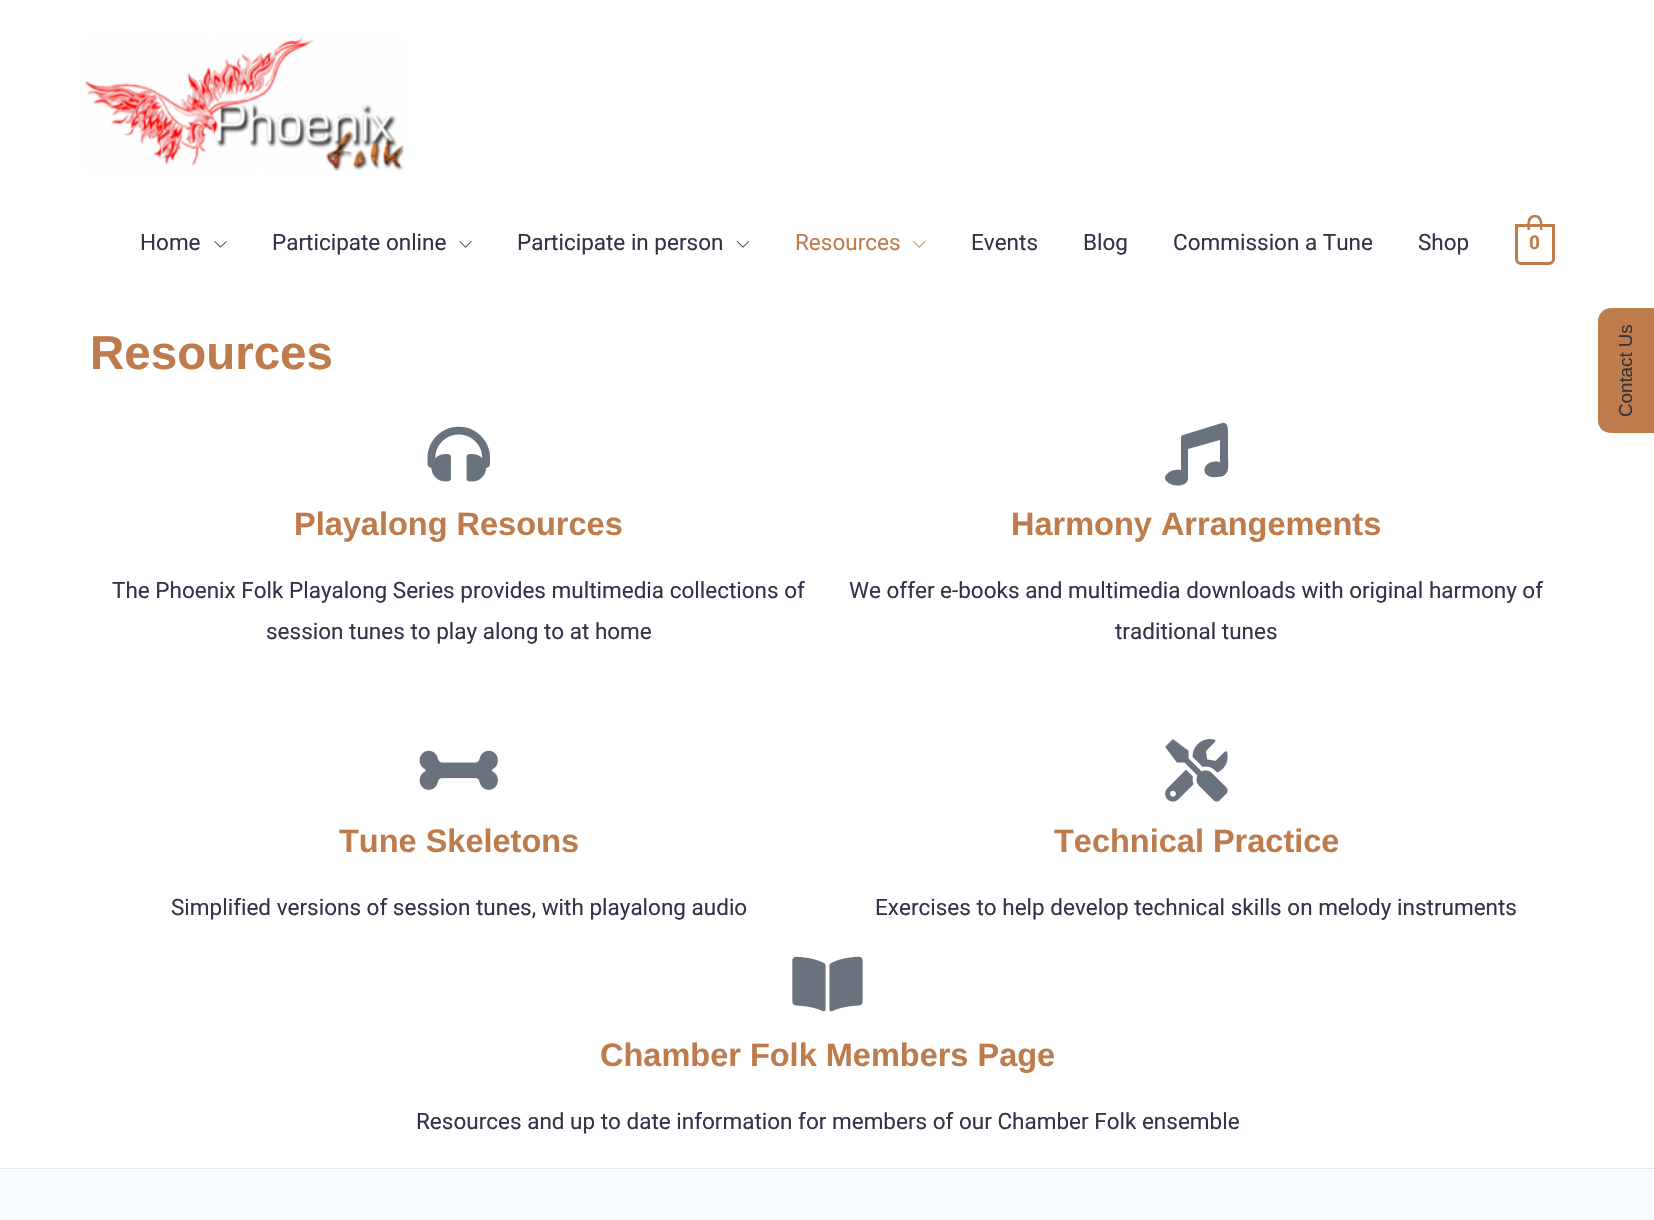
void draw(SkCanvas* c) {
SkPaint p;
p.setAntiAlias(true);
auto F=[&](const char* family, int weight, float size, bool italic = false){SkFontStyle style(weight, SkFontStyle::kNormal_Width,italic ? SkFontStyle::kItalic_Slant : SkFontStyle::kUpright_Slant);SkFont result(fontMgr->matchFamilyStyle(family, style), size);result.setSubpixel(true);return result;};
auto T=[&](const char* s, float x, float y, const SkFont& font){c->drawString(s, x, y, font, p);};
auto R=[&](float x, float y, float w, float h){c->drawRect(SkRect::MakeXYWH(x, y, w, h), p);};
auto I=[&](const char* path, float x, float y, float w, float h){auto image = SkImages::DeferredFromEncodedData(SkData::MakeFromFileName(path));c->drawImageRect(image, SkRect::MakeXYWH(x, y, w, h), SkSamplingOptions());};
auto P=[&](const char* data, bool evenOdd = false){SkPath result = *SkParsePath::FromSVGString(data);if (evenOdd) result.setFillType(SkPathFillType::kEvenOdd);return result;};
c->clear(0xffffffff);
I("1.png",85,37,319,135);
auto f1 = F("Roboto",400,22.5);
p.setColor(0xff353248);
T("Home",140,250,f1);
I("2.png",214,241,13,7);
T("Participate online",272,250,f1);
I("2.png",459,241,13,7);
T("Participate in person",517,250,f1);
I("3.png",737,241,12,7);
p.setColor(0xffbe7c4d);
T("Resources",795,250,f1);
I("4.png",913,241,13,7);
p.setColor(0xff353248);
T("Events",971,250,f1);
T("Blog",1083,250,f1);
T("Commission a Tune",1173,250,f1);
T("Shop",1418,250,f1);
p.setStroke(true);
p.setStrokeWidth(3);
p.setColor(0xffbe7c4d);
c->drawPath(P("M1516.5 225.5h37v33.5c0 2.5-2 4.5-4.5 4.5h-28c-2.5 0-4.5-2-4.5-4.5z"),p);
p.setStroke(false);
c->drawPath(P("M1535 215c8.5 0 7.5 9 7.5 15h-15c0-6-1.5-15 7.5-15zm0 2.5c6 0 5 8.5 5 12.5h-10c0-4-1.5-12.5 5-12.5z",true),p);
auto f2 = F("Roboto",700,19);
T("0",1529,249,f2);
auto f3 = F("Liberation Sans",700,47.5);
T("Resources",90,369,f3);
I("5.png",427,426,63,56);
auto f4 = F("Liberation Sans",700,32.5);
T("Playalong Resources",294,535,f4);
p.setColor(0xff353248);
T("The Phoenix Folk Playalong Series provides multimedia collections of",112,598,f1);
T("session tunes to play along to at home",266,639,f1);
p.setColor(0xff69727d);
c->drawPath(P("M1222 423c7-2 6 9 6 11v21c0 11 3 22-11 22c-19 2-15-19 3-15v-22l-32 9v24v7c-5 12-32 2-20-7c3-3 8-4 13-3v-32c0-2 1-3 2-3z"),p);
p.setColor(0xffbe7c4d);
T("Harmony Arrangements",1011,535,f4);
p.setColor(0xff353248);
T("We offer e-books and multimedia downloads with original harmony of",849,598,f1);
T("traditional tunes",1115,639,f1);
I("6.png",419,750,79,40);
p.setColor(0xffbe7c4d);
T("Tune Skeletons",339,852,f4);
p.setColor(0xff353248);
T("Simplified versions of session tunes, with playalong audio",171,915,f1);
I("7.png",1165,739,63,63);
p.setColor(0xffbe7c4d);
T("Technical Practice",1054,852,f4);
p.setColor(0xff353248);
T("Exercises to help develop technical skills on melody instruments",875,915,f1);
I("8.png",792,956,71,56);
p.setColor(0xffbe7c4d);
T("Chamber Folk Members Page",600,1066,f4);
p.setColor(0xff353248);
T("Resources and up to date information for members of our Chamber Folk ensemble",416,1129,f1);
p.setColor(0xffe5e9ea);
R(0,1168,1654,1);
p.setColor(0xfff8fcfe);
R(0,1169,1654,51);
p.setColor(0xffbe7c4d);
c->drawPath(P("M1598 421v-100c0-7 6-13 13-13h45v125h-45c-7 0-13-5-13-12z"),p);
auto f5 = F("Liberation Sans",400,18.75);
p.setColor(0xff353238);
c->save();
c->rotate(-90,1632,417);
T("Contact Us",1632,417,f5);
c->restore();
}
